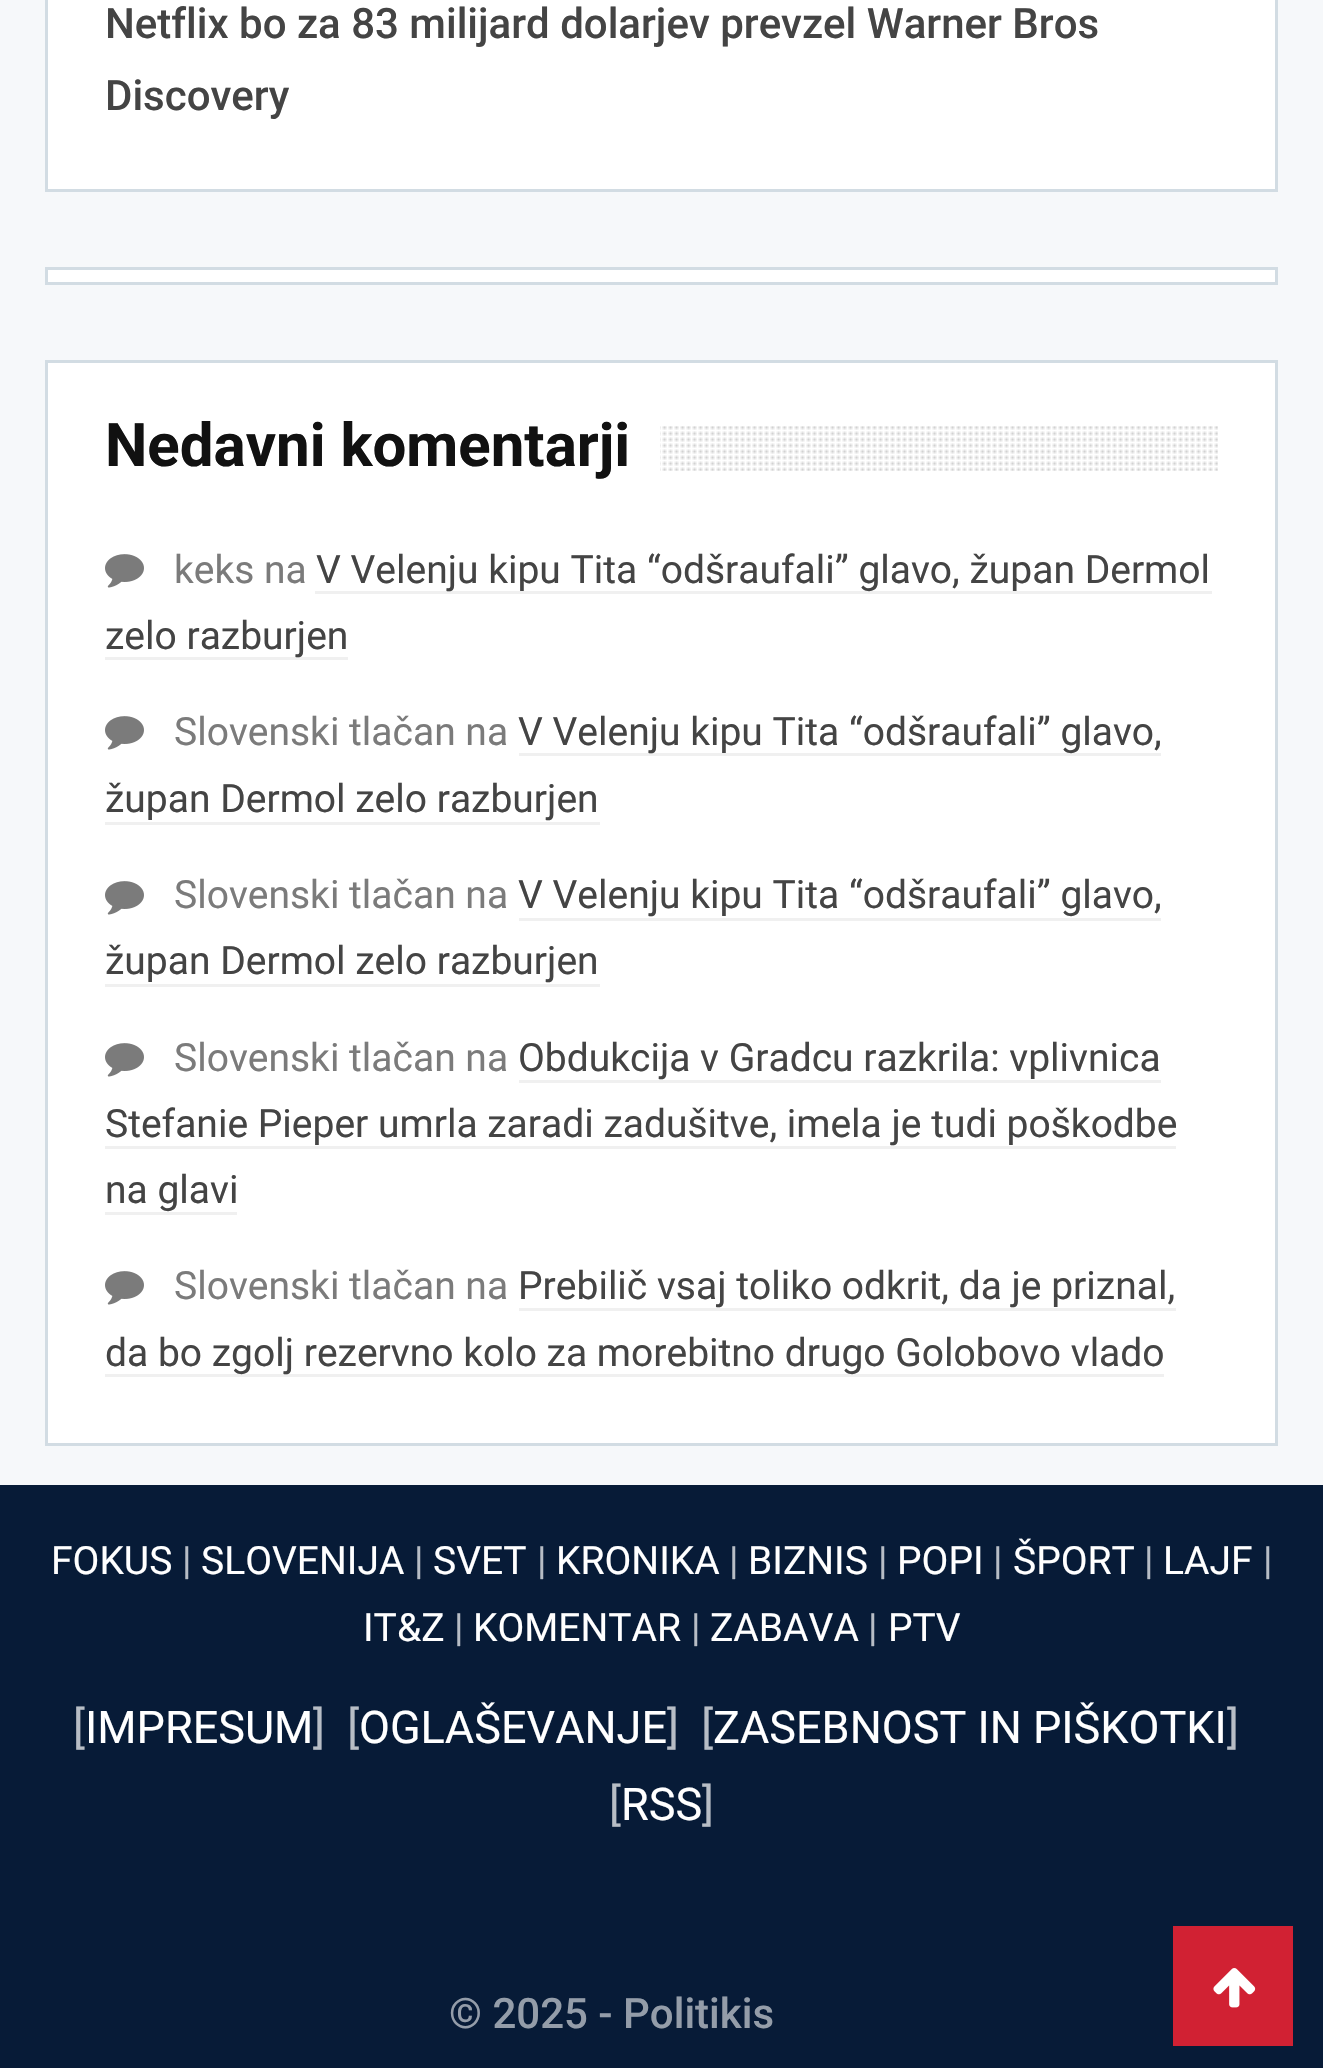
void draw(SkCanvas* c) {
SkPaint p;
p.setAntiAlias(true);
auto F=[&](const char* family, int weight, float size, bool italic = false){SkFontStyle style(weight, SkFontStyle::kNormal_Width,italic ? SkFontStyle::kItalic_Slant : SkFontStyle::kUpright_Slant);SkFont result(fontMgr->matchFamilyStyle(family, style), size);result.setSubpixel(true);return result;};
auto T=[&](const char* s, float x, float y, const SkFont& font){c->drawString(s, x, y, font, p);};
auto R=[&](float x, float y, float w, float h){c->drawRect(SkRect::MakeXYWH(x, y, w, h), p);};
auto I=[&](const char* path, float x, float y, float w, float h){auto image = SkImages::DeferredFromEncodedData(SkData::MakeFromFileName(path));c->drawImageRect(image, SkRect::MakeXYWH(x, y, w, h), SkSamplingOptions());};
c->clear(0xfff6f8fa);
p.setColor(0xffffffff);
c->drawRect(SkRect::MakeXYWH(46.5,-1.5,1230,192),p);
p.setStroke(true);
p.setStrokeWidth(3);
p.setColor(0xffd2dce3);
c->drawRect(SkRect::MakeXYWH(46.5,-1.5,1230,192),p);
auto f1 = F("Roboto",500,42);
p.setStroke(false);
p.setColor(0xff444444);
T("Netflix bo za 83 milijard dolarjev prevzel Warner Bros",105,38,f1);
T("Discovery",105,110,f1);
p.setColor(0xffffffff);
c->drawRect(SkRect::MakeXYWH(46.5,268.5,1230,15),p);
p.setStroke(true);
p.setColor(0xffd2dce3);
c->drawRect(SkRect::MakeXYWH(46.5,268.5,1230,15),p);
p.setStroke(false);
p.setColor(0xffffffff);
c->drawRect(SkRect::MakeXYWH(46.5,361.5,1230,1083),p);
p.setStroke(true);
p.setColor(0xffd2dce3);
c->drawRect(SkRect::MakeXYWH(46.5,361.5,1230,1083),p);
auto f2 = F("Roboto",700,60);
p.setStroke(false);
p.setColor(0xff111111);
T("Nedavni komentarji",105,466,f2);
I("1.png",660,426,558,45);
I("2.png",105,554,39,34);
auto f3 = F("Roboto",400,39);
p.setColor(0xff7b7b7b);
T("keks na",174,583,f3);
p.setColor(0xfff0f0f0);
R(315,591,897,3);
p.setColor(0xff444444);
T("V Velenju kipu Tita “odšraufali” glavo, župan Dermol",316,583,f3);
p.setColor(0xfff0f0f0);
R(105,657,243,3);
p.setColor(0xff444444);
T("zelo razburjen",105,649,f3);
I("2.png",105,716,39,34);
p.setColor(0xff7b7b7b);
T("Slovenski tlačan na",174,745,f3);
p.setColor(0xfff0f0f0);
R(519,753,642,3);
p.setColor(0xff444444);
T("V Velenju kipu Tita “odšraufali” glavo,",518,745,f3);
T("župan Dermol zelo razburjen",105,812,f3);
p.setColor(0xfff0f0f0);
R(105,822,495,3);
I("2.png",105,881,39,34);
p.setColor(0xff7b7b7b);
T("Slovenski tlačan na",174,908,f3);
p.setColor(0xff444444);
T("V Velenju kipu Tita “odšraufali” glavo,",518,908,f3);
p.setColor(0xfff0f0f0);
R(519,918,642,3);
p.setColor(0xff444444);
T("župan Dermol zelo razburjen",105,974,f3);
p.setColor(0xfff0f0f0);
R(105,984,495,3);
I("2.png",105,1043,39,34);
p.setColor(0xff7b7b7b);
T("Slovenski tlačan na",174,1071,f3);
p.setColor(0xff444444);
T("Obdukcija v Gradcu razkrila: vplivnica",518,1071,f3);
p.setColor(0xfff0f0f0);
R(519,1080,642,3);
p.setColor(0xff444444);
T("Stefanie Pieper umrla zaradi zadušitve, imela je tudi poškodbe",105,1137,f3);
p.setColor(0xfff0f0f0);
R(105,1146,1071,3);
p.setColor(0xff444444);
T("na glavi",105,1203,f3);
p.setColor(0xfff0f0f0);
R(105,1212,132,3);
I("2.png",105,1271,39,34);
p.setColor(0xff7b7b7b);
T("Slovenski tlačan na",174,1299,f3);
p.setColor(0xff444444);
T("Prebilič vsaj toliko odkrit, da je priznal,",518,1299,f3);
p.setColor(0xfff0f0f0);
R(519,1308,657,3);
R(105,1374,1059,3);
p.setColor(0xff444444);
T("da bo zgolj rezervno kolo za morebitno drugo Golobovo vlado",105,1366,f3);
p.setColor(0xff071b37);
R(0,1485,1323,583);
p.setColor(0xffffffff);
T("FOKUS",51,1574,f3);
p.setColor(0xffb7bdc5);
T("|",182,1574,f3);
p.setColor(0xffffffff);
T("SLOVENIJA",201,1574,f3);
p.setColor(0xffb7bdc5);
T("|",414,1574,f3);
p.setColor(0xffffffff);
T("SVET",433,1574,f3);
p.setColor(0xffb7bdc5);
T("|",537,1574,f3);
p.setColor(0xffffffff);
T("KRONIKA",556,1574,f3);
p.setColor(0xffb7bdc5);
T("|",729,1574,f3);
p.setColor(0xffffffff);
T("BIZNIS",748,1574,f3);
p.setColor(0xffb7bdc5);
T("|",878,1574,f3);
p.setColor(0xffffffff);
T("POPI",897,1574,f3);
p.setColor(0xffb7bdc5);
T("|",993,1574,f3);
p.setColor(0xffffffff);
T("ŠPORT",1013,1574,f3);
p.setColor(0xffb7bdc5);
T("|",1144,1574,f3);
p.setColor(0xffffffff);
T("LAJF",1163,1574,f3);
p.setColor(0xffb7bdc5);
T("|",1263,1574,f3);
p.setColor(0xffffffff);
T("IT&Z",363,1641,f3);
p.setColor(0xffb7bdc5);
T("|",454,1641,f3);
p.setColor(0xffffffff);
T("KOMENTAR",473,1641,f3);
p.setColor(0xffb7bdc5);
T("|",691,1641,f3);
p.setColor(0xffffffff);
T("ZABAVA",710,1641,f3);
p.setColor(0xffb7bdc5);
T("|",868,1641,f3);
p.setColor(0xffffffff);
T("PTV",888,1641,f3);
auto f4 = F("Roboto",400,45);
p.setColor(0xffb7bdc5);
T("[",73,1743,f4);
p.setColor(0xffffffff);
T("IMPRESUM",85,1743,f4);
p.setColor(0xffb7bdc5);
T("]  [",313,1743,f4);
p.setColor(0xffffffff);
T("OGLAŠEVANJE",359,1743,f4);
p.setColor(0xffb7bdc5);
T("]  [",667,1743,f4);
p.setColor(0xffffffff);
T("ZASEBNOST IN PIŠKOTKI",713,1743,f4);
p.setColor(0xffb7bdc5);
T("]",1227,1743,f4);
T("[",609,1820,f4);
p.setColor(0xffffffff);
T("RSS",621,1820,f4);
p.setColor(0xffb7bdc5);
T("]",702,1820,f4);
p.setColor(0xff949da9);
T("© 2025 - Politikis",449,2028,f1);
p.setColor(0xffd12133);
R(1173,1926,120,120);
I("3.png",1213,1968,43,40);
}
